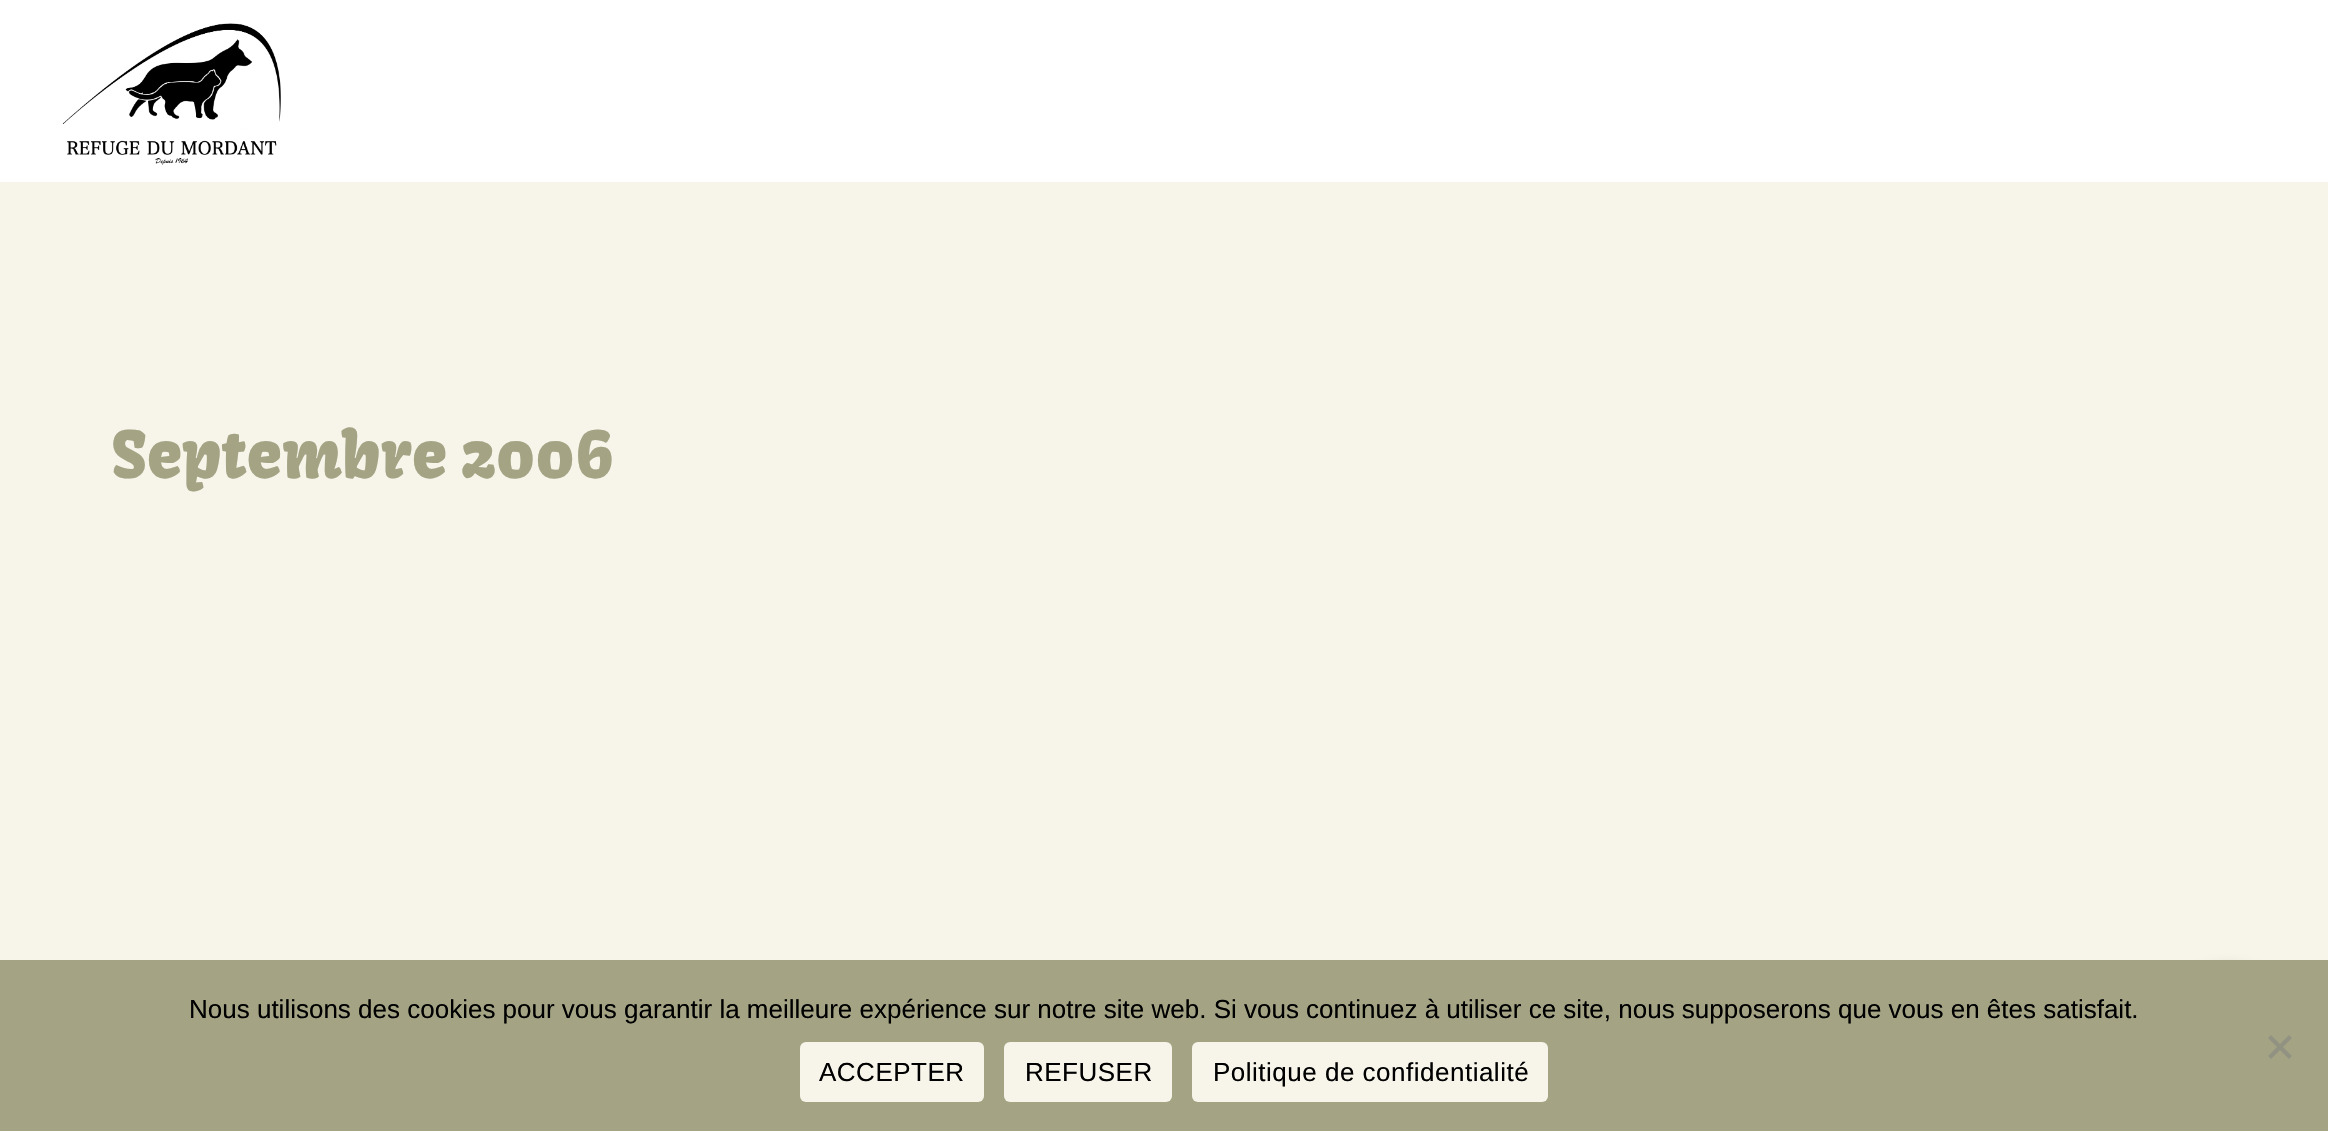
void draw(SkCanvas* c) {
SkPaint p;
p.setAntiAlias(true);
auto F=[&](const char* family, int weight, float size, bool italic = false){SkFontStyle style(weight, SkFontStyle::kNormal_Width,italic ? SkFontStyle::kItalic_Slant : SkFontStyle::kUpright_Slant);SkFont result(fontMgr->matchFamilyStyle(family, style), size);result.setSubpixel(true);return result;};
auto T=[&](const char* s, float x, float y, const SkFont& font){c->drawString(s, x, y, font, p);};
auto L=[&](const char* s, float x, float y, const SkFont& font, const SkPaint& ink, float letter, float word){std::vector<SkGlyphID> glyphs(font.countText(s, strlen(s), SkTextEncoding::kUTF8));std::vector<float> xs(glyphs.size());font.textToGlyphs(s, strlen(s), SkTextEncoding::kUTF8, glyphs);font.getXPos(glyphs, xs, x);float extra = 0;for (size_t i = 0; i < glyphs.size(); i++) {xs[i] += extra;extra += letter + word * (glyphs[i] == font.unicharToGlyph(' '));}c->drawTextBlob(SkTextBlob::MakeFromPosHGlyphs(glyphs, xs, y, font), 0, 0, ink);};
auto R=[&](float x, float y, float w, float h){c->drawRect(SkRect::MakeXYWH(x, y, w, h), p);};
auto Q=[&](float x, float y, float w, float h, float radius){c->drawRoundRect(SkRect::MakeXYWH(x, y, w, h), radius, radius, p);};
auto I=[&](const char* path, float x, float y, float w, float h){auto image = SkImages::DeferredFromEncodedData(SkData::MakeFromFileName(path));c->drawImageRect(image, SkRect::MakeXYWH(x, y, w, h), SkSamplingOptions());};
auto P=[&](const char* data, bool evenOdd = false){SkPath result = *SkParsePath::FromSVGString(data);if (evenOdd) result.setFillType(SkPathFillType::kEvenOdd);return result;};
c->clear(0xfff7f5ea);
p.setColor(0xffffffff);
R(0,0,2328,182);
I("1.png",62,23,219,142);
auto f1 = F("Kavoon",400,64);
p.setColor(0xffa4a485);
T("Septembre 2006",112,478,f1);
p.setColor(0x80000000);
p.setMaskFilter(SkMaskFilter::MakeBlur(kNormal_SkBlurStyle, 8));
c->drawRoundRect(SkRect::MakeXYWH(2168,972,120,120),60,60,p);
p.setMaskFilter(nullptr);
p.setColor(0xffa4a485);
R(0,960,2328,171);
auto f2 = F("Liberation Sans",400,26);
p.setColor(0xff000000);
T("Nous utilisons des cookies pour vous garantir la meilleure expérience sur notre site web. Si vous continuez à utiliser ce site, nous supposerons que vous en êtes satisfait.",189,1018,f2);
p.setColor(0xff929283);
c->drawPath(P("M2289 1035l3 3l-21 21l-3-3z"),p);
c->drawPath(P("M2268 1038l3-3l21 21l-3 3z"),p);
p.setColor(0xfff7f5ea);
Q(800,1042,184,60,6);
p.setColor(0xff000000);
L("ACCEPTER",819,1081,f2,p,.5,0);
p.setColor(0xfff7f5ea);
Q(1004,1042,168,60,6);
p.setColor(0xff000000);
L("REFUSER",1025,1081,f2,p,.5,0);
p.setColor(0xfff7f5ea);
Q(1192,1042,356,60,6);
p.setColor(0xff000000);
L("Politique de confidentialité",1213,1081,f2,p,.5,0);
}
